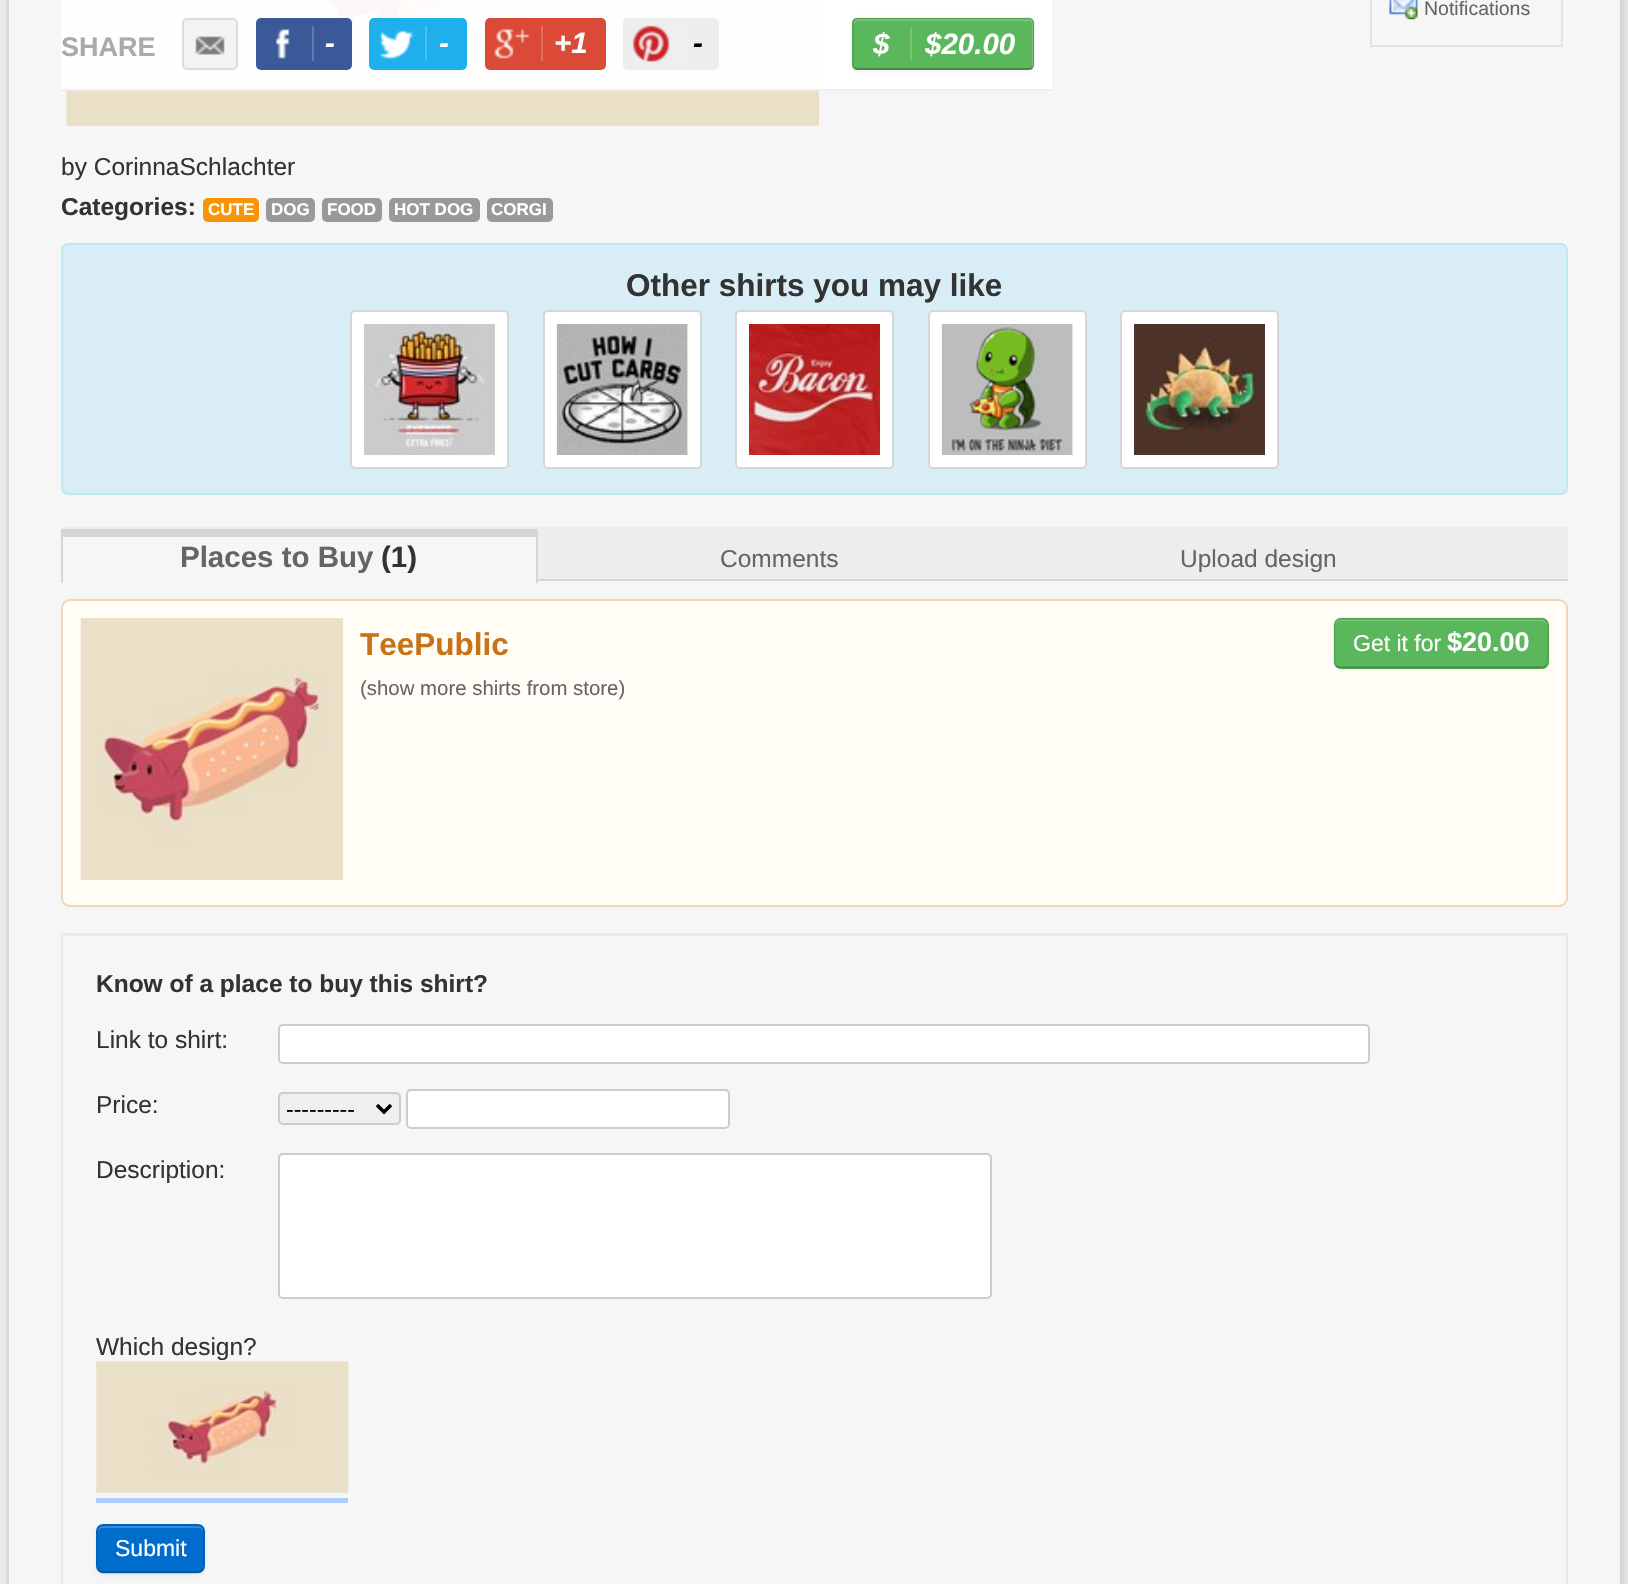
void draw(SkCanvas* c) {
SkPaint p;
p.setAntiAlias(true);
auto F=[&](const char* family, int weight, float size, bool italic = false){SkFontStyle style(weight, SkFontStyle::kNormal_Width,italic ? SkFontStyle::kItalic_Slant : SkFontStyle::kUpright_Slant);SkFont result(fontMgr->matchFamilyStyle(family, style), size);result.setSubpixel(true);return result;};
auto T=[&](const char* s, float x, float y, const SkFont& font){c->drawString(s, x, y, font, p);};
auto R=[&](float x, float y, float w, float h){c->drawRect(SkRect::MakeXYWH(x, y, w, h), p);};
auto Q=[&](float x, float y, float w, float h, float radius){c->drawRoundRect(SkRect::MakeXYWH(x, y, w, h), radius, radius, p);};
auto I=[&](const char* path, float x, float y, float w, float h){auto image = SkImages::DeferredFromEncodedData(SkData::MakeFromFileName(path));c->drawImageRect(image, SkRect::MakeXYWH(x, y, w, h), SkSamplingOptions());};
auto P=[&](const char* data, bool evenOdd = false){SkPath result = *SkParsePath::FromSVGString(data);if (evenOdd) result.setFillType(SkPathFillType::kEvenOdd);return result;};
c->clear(0xffededed);
p.setColor(0xffcccccc);
p.setMaskFilter(SkMaskFilter::MakeBlur(kNormal_SkBlurStyle, 4.5));
c->drawRoundRect(SkRect::MakeXYWH(9,-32,1615,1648),18,18,p);
p.setMaskFilter(nullptr);
p.setColor(0xfff6f6f6);
c->drawRect(SkRect::MakeXYWH(8,-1,1613,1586),p);
p.setStroke(true);
p.setStrokeWidth(2);
p.setColor(0xffd6d6d6);
c->drawRect(SkRect::MakeXYWH(8,-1,1613,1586),p);
I("1.png",66,0,753,126);
p.setColor(0xffe3e3e3);
c->drawRect(SkRect::MakeXYWH(1371,-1,191,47),p);
I("2.png",1389,0,29,20);
auto f1 = F("Liberation Sans",400,19.5);
p.setStroke(false);
p.setColor(0xff656565);
T("Notifications",1424,15,f1);
p.setColor(0xf2ffffff);
R(61,0,991,89);
p.setColor(0xffeeeeee);
R(61,89,991,2);
auto f2 = F("Liberation Sans",700,27);
p.setColor(0xffaaaaaa);
T("SHARE",61,56,f2);
p.setColor(0xfff3f3f3);
c->drawRoundRect(SkRect::MakeXYWH(183,19,54,50),4,4,p);
p.setStroke(true);
p.setColor(0xffdddddd);
c->drawRoundRect(SkRect::MakeXYWH(183,19,54,50),4,4,p);
I("3.png",195,36,30,19);
p.setStroke(false);
p.setColor(0xff3a5998);
Q(256,18,96,52,5);
I("4.png",275,28,15,31);
p.setColor(0xff617aad);
R(312,26,2,35);
auto f3 = F("Liberation Sans",700,29.5,true);
p.setColor(0xffffffff);
T("-",325,53,f3);
p.setColor(0xff1db0ed);
Q(369,18,98,52,5);
I("5.png",379,30,35,29);
p.setColor(0xff4ac0f1);
R(425,26,2,35);
p.setColor(0xffffffff);
T("-",439,53,f3);
p.setColor(0xffdb4a37);
Q(485,18,121,52,5);
I("6.png",494,28,36,31);
p.setColor(0xffe26e5f);
R(541,26,2,35);
p.setColor(0xffffffff);
T("+1",554,53,f3);
p.setColor(0xffeeeeee);
Q(623,18,96,52,5);
I("7.png",632,25,38,37);
p.setColor(0xfff1f1f1);
R(679,26,2,35);
p.setColor(0xff000000);
T("-",693,53,f3);
p.setColor(0x0d000000);
p.setMaskFilter(SkMaskFilter::MakeBlur(kNormal_SkBlurStyle, 2));
c->drawRoundRect(SkRect::MakeXYWH(852,19,182,53),5,5,p);
p.setMaskFilter(nullptr);
p.setColor(0xff5bb75b);
Q(852,18,182,52,5);
p.setColor(0xff7cc57c);
c->drawPath(P("M858 21h171c2 0 3 2 3 3v43c1-1 1-2 1-3v-41c0-2-2-4-4-4h-171c-2 0-4 2-4 4v1c0-1 2-3 4-3z"),p);
p.setStroke(true);
p.setStrokeWidth(1.8);
p.setColor(0x40000000);
c->drawPath(P("M1032 68c-.5 .5-2 1-3 1h-171.5c-1 0-2.5-.5-3-1"),p);
p.setColor(0x1a000000);
c->drawPath(P("M854.5 68c-1-1-1.5-2-1.5-3v-42c0-1.5 .5-2.5 1.5-3.5c.5-.5 2-1 3-1h171.5c1 0 2.5 .5 3 1c1 1 1.5 2 1.5 3.5v42c0 1-.5 2-1.5 3"),p);
p.setStroke(false);
p.setColor(0xffffffff);
T("$",873,54,f3);
p.setColor(0xff7cc57c);
R(910,28,2,32);
p.setColor(0xffffffff);
T("$20.00",925,54,f3);
auto f4 = F("Liberation Sans",400,24.5);
p.setColor(0xff333333);
T("by CorinnaSchlachter",61,175,f4);
auto f5 = F("Liberation Sans",700,24.5);
T("Categories:",61,215,f5);
p.setColor(0xfff89406);
Q(203,198,56,24,5);
auto f6 = F("Liberation Sans",700,17);
p.setColor(0xffffffff);
T("CUTE",208,215,f6);
p.setColor(0xff999999);
Q(266,198,49,24,5);
p.setColor(0xffffffff);
T("DOG",271,215,f6);
p.setColor(0xff999999);
Q(322,198,60,24,5);
p.setColor(0xffffffff);
T("FOOD",327,215,f6);
p.setColor(0xff999999);
Q(389,198,91,24,5);
p.setColor(0xffffffff);
T("HOT DOG",394,215,f6);
p.setColor(0xff999999);
Q(487,198,66,24,5);
p.setColor(0xffffffff);
T("CORGI",491,215,f6);
p.setColor(0xffd9edf7);
c->drawRoundRect(SkRect::MakeXYWH(62,244,1505,250),6,6,p);
p.setStroke(true);
p.setStrokeWidth(2);
p.setColor(0xffbce8f1);
c->drawRoundRect(SkRect::MakeXYWH(62,244,1505,250),6,6,p);
auto f7 = F("Liberation Sans",700,31.5);
p.setStroke(false);
p.setColor(0xff333333);
T("Other shirts you may like",626,296,f7);
p.setColor(0xffffffff);
c->drawRoundRect(SkRect::MakeXYWH(351,311,157,157),4,4,p);
p.setStroke(true);
p.setColor(0xffd6d6d6);
c->drawRoundRect(SkRect::MakeXYWH(351,311,157,157),4,4,p);
I("8.png",364,324,131,131);
p.setStroke(false);
p.setColor(0xffffffff);
c->drawRoundRect(SkRect::MakeXYWH(544,311,157,157),4,4,p);
p.setStroke(true);
p.setColor(0xffd6d6d6);
c->drawRoundRect(SkRect::MakeXYWH(544,311,157,157),4,4,p);
I("9.png",556,324,132,131);
p.setStroke(false);
p.setColor(0xffffffff);
c->drawRoundRect(SkRect::MakeXYWH(736,311,157,157),4,4,p);
p.setStroke(true);
p.setColor(0xffd6d6d6);
c->drawRoundRect(SkRect::MakeXYWH(736,311,157,157),4,4,p);
I("10.png",749,324,131,131);
p.setStroke(false);
p.setColor(0xffffffff);
c->drawRoundRect(SkRect::MakeXYWH(929,311,157,157),4,4,p);
p.setStroke(true);
p.setColor(0xffd6d6d6);
c->drawRoundRect(SkRect::MakeXYWH(929,311,157,157),4,4,p);
I("11.png",941,324,132,131);
p.setStroke(false);
p.setColor(0xffffffff);
c->drawRoundRect(SkRect::MakeXYWH(1121,311,157,157),4,4,p);
p.setStroke(true);
p.setColor(0xffd6d6d6);
c->drawRoundRect(SkRect::MakeXYWH(1121,311,157,157),4,4,p);
I("12.png",1134,324,131,131);
p.setStroke(false);
p.setColor(0xffededed);
R(61,527,1507,52);
p.setColor(0xffd6d6d6);
R(538,579,1030,2);
p.setColor(0xfff6f6f6);
R(63,537,473,42);
p.setColor(0xffd6d6d6);
R(61,529,476,8);
R(536,529,2,54);
R(61,529,2,54);
auto f8 = F("Liberation Sans",700,29.5);
p.setColor(0xff656565);
T("Places to Buy",180,567,f8);
p.setColor(0xff333333);
T("(1)",381,567,f8);
p.setColor(0xff656565);
T("Comments",720,567,f4);
T("Upload design",1180,567,f4);
p.setColor(0xfffffdf6);
c->drawRoundRect(SkRect::MakeXYWH(62,600,1505,306),8,8,p);
p.setStroke(true);
p.setColor(0xfff0d5b9);
c->drawRoundRect(SkRect::MakeXYWH(62,600,1505,306),8,8,p);
I("13.png",80,618,263,262);
p.setStroke(false);
p.setColor(0xffc7731a);
T("TeePublic",360,655,f7);
p.setColor(0x0d000000);
p.setMaskFilter(SkMaskFilter::MakeBlur(kNormal_SkBlurStyle, 2));
c->drawRoundRect(SkRect::MakeXYWH(1334,620,215,50),7,7,p);
p.setMaskFilter(nullptr);
p.setColor(0xff5bb75b);
Q(1334,618,215,51,7);
p.setColor(0xff7cc57c);
c->drawPath(P("M1340 621h202c3 0 5 3 5 5v-1c0-3-2-5-5-5h-202c-3 0-5 2-5 5v1c0-2 3-5 5-5z"),p);
p.setStroke(true);
p.setStrokeWidth(1.8);
p.setColor(0x40000000);
c->drawPath(P("M1546 666c-1 1-2.5 1.5-4 1.5h-201.5c-1.5 0-3-.5-4.5-1.5"),p);
p.setColor(0x1a000000);
c->drawPath(P("M1336 666c-1-1.5-1.5-3-1.5-4.5v-36.5c0-2 .5-3.5 1.5-4.5c1.5-1 3-2 4.5-2h201.5c1.5 0 3 1 4 2c1 1 2 2.5 2 4.5v36.5c0 1.5-1 3-2 4.5"),p);
auto f9 = F("Liberation Sans",400,23);
p.setStroke(false);
p.setColor(0xffffffff);
T("Get it for",1353,651,f9);
T("$20.00",1447,651,f2);
auto f10 = F("Liberation Sans",400,20.4);
p.setColor(0xff656565);
T("(show more shirts from store)",360,695,f10);
p.setColor(0xffeaeaea);
c->drawPath(P("M68 936h1493c3 0 5 3 5 6c0-3-1-7-5-7h-1493c-4 0-5 4-5 7c0-3 2-6 5-6z"),p);
p.setStroke(true);
p.setStrokeWidth(2);
p.setColor(0x0d000000);
c->drawRect(SkRect::MakeXYWH(62,934,1505,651),p);
p.setStroke(false);
p.setColor(0xff333333);
T("Know of a place to buy this shirt?",96,992,f5);
T("Link to shirt:",96,1048,f4);
p.setColor(0xffffffff);
c->drawRoundRect(SkRect::MakeXYWH(279,1025,1090,38),4,4,p);
p.setStroke(true);
p.setColor(0xffcccccc);
c->drawRoundRect(SkRect::MakeXYWH(279,1025,1090,38),4,4,p);
p.setStroke(false);
p.setColor(0xff333333);
T("Price:",96,1113,f4);
p.setColor(0xffefefef);
c->drawRoundRect(SkRect::MakeXYWH(279,1093,121,31),4,4,p);
p.setStroke(true);
p.setColor(0xffcccccc);
c->drawRoundRect(SkRect::MakeXYWH(279,1093,121,31),4,4,p);
p.setStrokeWidth(3.5);
p.setColor(0xff000000);
c->drawPath(P("M377 1105l7 7l7-7"),p);
p.setStroke(false);
T("---------",286,1117,f9);
p.setColor(0xffffffff);
c->drawRoundRect(SkRect::MakeXYWH(407,1090,322,38),4,4,p);
p.setStroke(true);
p.setStrokeWidth(2);
p.setColor(0xffcccccc);
c->drawRoundRect(SkRect::MakeXYWH(407,1090,322,38),4,4,p);
p.setStroke(false);
p.setColor(0xff333333);
T("Description:",96,1178,f4);
p.setColor(0xffffffff);
c->drawRoundRect(SkRect::MakeXYWH(279,1154,712,144),4,4,p);
p.setStroke(true);
p.setColor(0xffcccccc);
c->drawRoundRect(SkRect::MakeXYWH(279,1154,712,144),4,4,p);
p.setStroke(false);
p.setColor(0xff333333);
T("Which design?",96,1355,f4);
I("14.png",96,1361,253,132);
p.setColor(0xffaaccff);
R(96,1498,252,5);
p.setColor(0x0d000000);
p.setMaskFilter(SkMaskFilter::MakeBlur(kNormal_SkBlurStyle, 2));
c->drawRoundRect(SkRect::MakeXYWH(96,1526,109,49),7,7,p);
p.setMaskFilter(nullptr);
p.setColor(0xff006dcc);
Q(96,1524,109,49,7);
p.setColor(0xff338ad6);
c->drawPath(P("M103 1528h95c3 0 5 2 5 5v-2c0-3-2-5-5-5h-95c-3 0-5 2-5 5v2c0-3 2-5 5-5z"),p);
p.setStroke(true);
p.setStrokeWidth(1.8);
p.setColor(0x40000000);
c->drawPath(P("M202 1570.5c-1 1-2.5 2-4 2h-95c-1.5 0-3-1-4-2"),p);
p.setColor(0x1a000000);
c->drawPath(P("M99 1570.5c-2.5-2.5-2-7-2-10v-11.5c0-26-3.5-24 22-24h63c25.5 0 22-2 22 24v11.5c0 3 .5 7.5-2 10"),p);
p.setStroke(false);
p.setColor(0xffffffff);
T("Submit",115,1556,f9);
}
